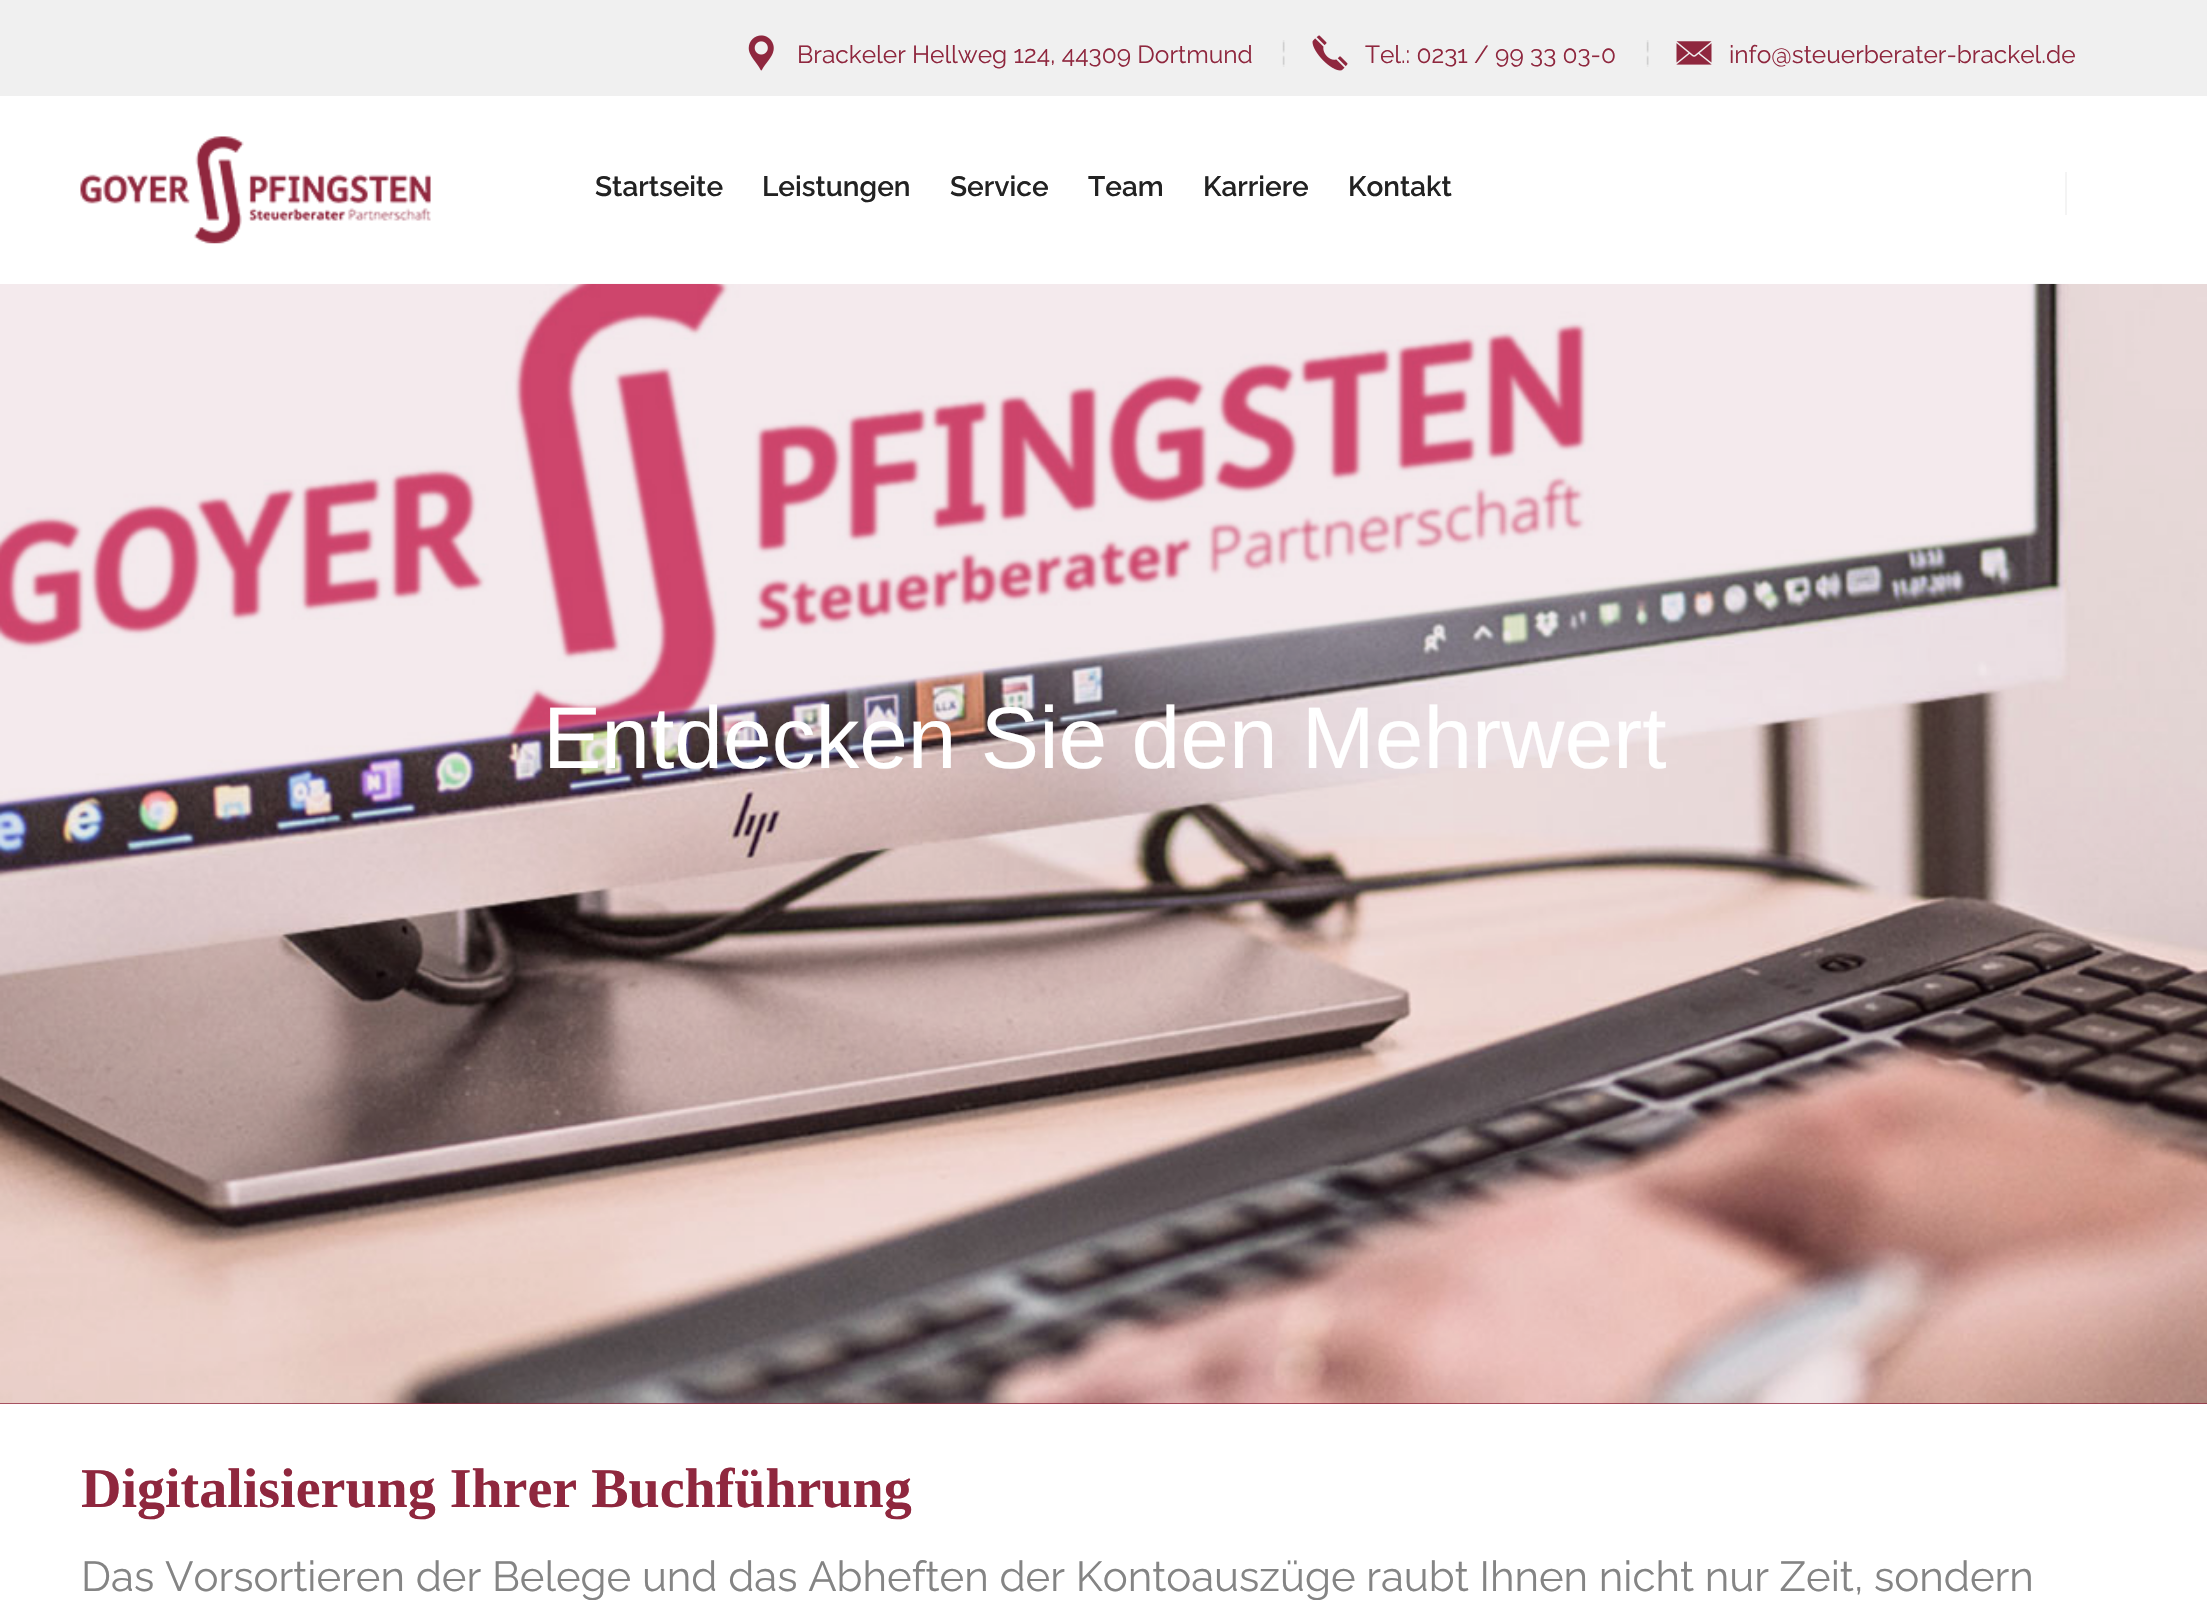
void draw(SkCanvas* c) {
SkPaint p;
p.setAntiAlias(true);
auto F=[&](const char* family, int weight, float size, bool italic = false){SkFontStyle style(weight, SkFontStyle::kNormal_Width,italic ? SkFontStyle::kItalic_Slant : SkFontStyle::kUpright_Slant);SkFont result(fontMgr->matchFamilyStyle(family, style), size);result.setSubpixel(true);return result;};
auto T=[&](const char* s, float x, float y, const SkFont& font){c->drawString(s, x, y, font, p);};
auto R=[&](float x, float y, float w, float h){c->drawRect(SkRect::MakeXYWH(x, y, w, h), p);};
auto I=[&](const char* path, float x, float y, float w, float h){auto image = SkImages::DeferredFromEncodedData(SkData::MakeFromFileName(path));c->drawImageRect(image, SkRect::MakeXYWH(x, y, w, h), SkSamplingOptions());};
c->clear(0xffffffff);
p.setColor(0xfff0f0f0);
R(0,0,2207,96);
I("1.png",748,35,26,36);
auto f1 = F("Raleway",100,24.5);
p.setColor(0xff8f273e);
T("Brackeler Hellweg 124, 44309 Dortmund",797,63,f1);
I("2.png",1282,40,3,27);
I("3.png",1312,35,36,36);
T("Tel.: 0231 / 99 33 03-0",1365,63,f1);
I("2.png",1646,40,3,27);
I("4.png",1676,41,36,24);
T("info@steuerberater-brackel.de",1729,63,f1);
R(0,284,2207,1120);
I("6.png",0,283,2207,1121);
p.setColor(0xccffffff);
R(574,283,1633,1);
I("5.png",80,136,351,108);
auto f2 = F("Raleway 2",100,28);
p.setColor(0xff222222);
T("Startseite",595,196,f2);
T("Leistungen",762,196,f2);
T("Service",950,196,f2);
T("Team",1088,196,f2);
T("Karriere",1203,196,f2);
T("Kontakt",1348,196,f2);
p.setColor(0xfff4f4f4);
R(2065,172,2,43);
auto f3 = F("Liberation Sans",400,87.5);
p.setColor(0xffffffff);
T("Entdecken Sie den Mehrwert",543,768,f3);
auto f4 = F("Liberation Serif",700,56);
p.setColor(0xff8f273e);
T("Digitalisierung Ihrer Buchführung",81,1507,f4);
auto f5 = F("Raleway",100,42);
p.setColor(0xff848484);
T("Das Vorsortieren der Belege und das Abheften der Kontoauszüge raubt Ihnen nicht nur Zeit, sondern",81,1591,f5);
}
